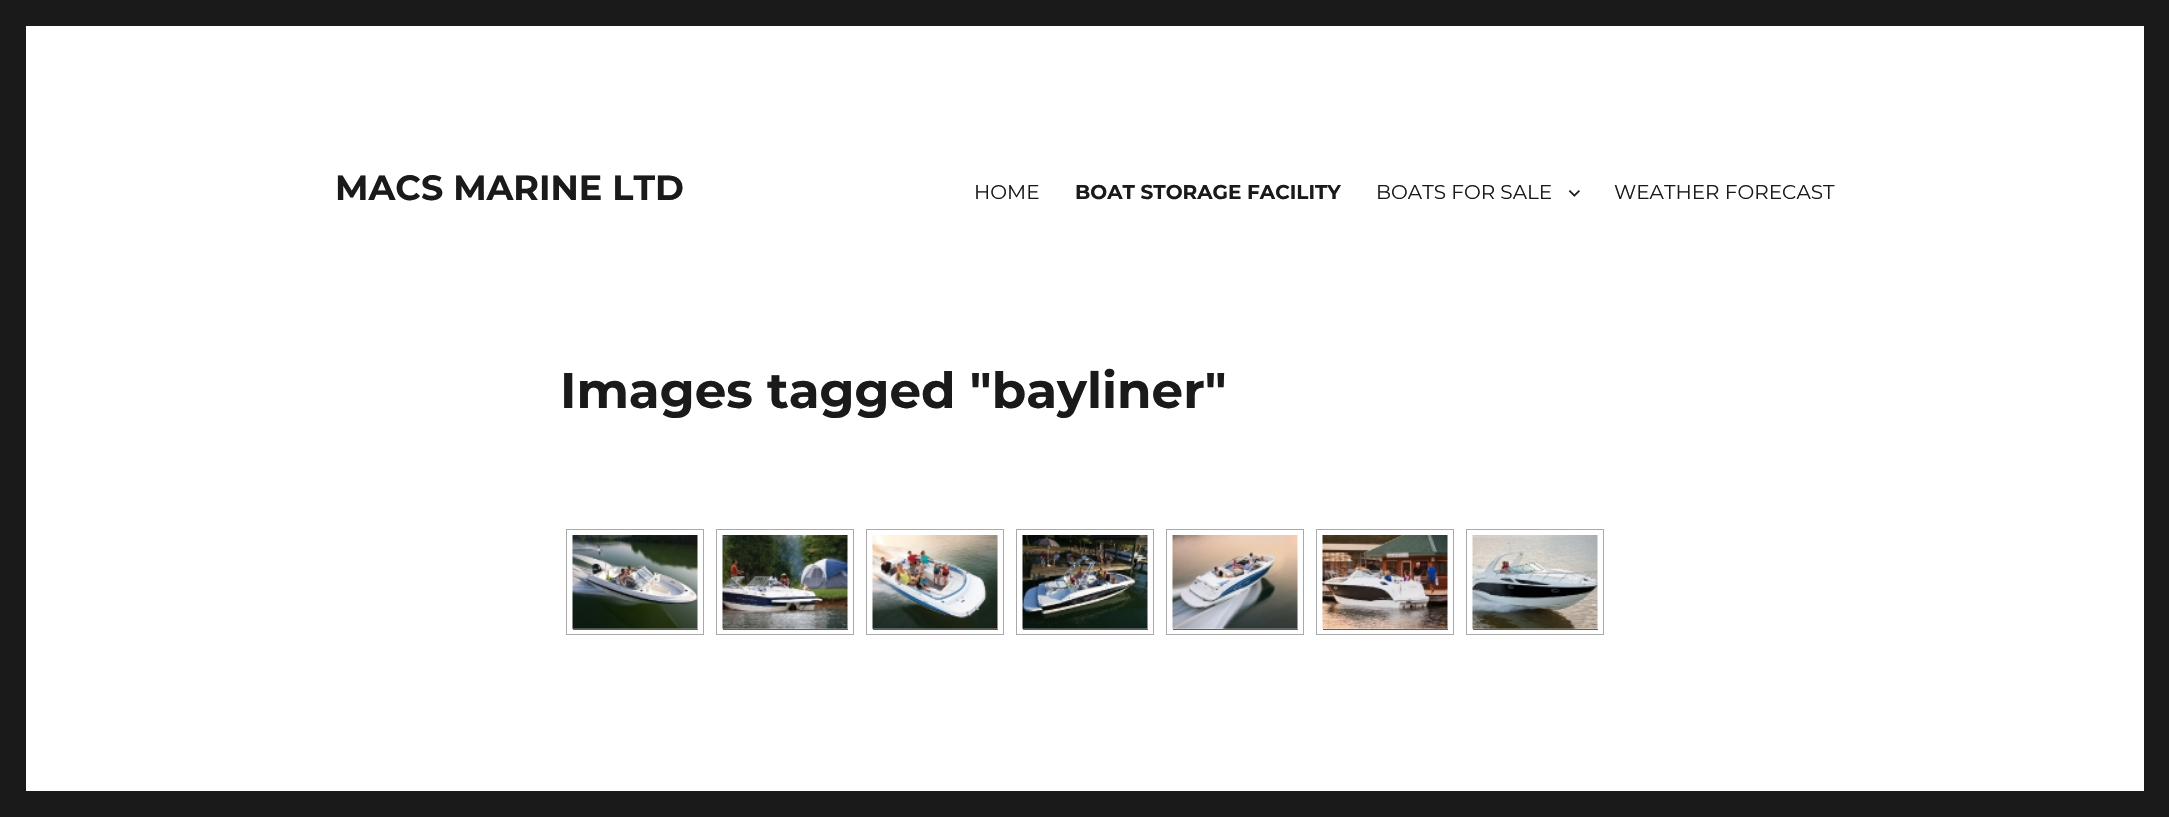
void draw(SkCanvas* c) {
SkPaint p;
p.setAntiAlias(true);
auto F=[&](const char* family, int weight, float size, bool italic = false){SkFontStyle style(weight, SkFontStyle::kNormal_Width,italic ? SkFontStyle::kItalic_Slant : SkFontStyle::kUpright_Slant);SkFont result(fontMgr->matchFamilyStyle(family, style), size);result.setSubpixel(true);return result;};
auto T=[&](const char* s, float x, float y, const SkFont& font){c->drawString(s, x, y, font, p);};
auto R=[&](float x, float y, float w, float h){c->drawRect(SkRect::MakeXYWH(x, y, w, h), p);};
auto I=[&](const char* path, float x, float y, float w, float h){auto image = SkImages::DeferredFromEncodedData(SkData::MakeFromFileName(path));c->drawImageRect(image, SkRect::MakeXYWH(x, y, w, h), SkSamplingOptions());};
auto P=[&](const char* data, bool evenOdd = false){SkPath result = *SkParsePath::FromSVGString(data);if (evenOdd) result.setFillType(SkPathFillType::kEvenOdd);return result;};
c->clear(0xff1a1a1a);
p.setColor(0xffffffff);
R(26,26,2118,765);
auto f1 = F("Montserrat",100,35);
p.setColor(0xff1a1a1a);
T("MACS MARINE LTD",335,200,f1);
auto f2 = F("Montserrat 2",100,20);
T("HOME",974,199,f2);
auto f3 = F("Montserrat",100,20);
T("BOAT STORAGE FACILITY",1075,199,f3);
T("BOATS FOR SALE",1376,199,f2);
I("1.png",1568,190,12,7);
T("WEATHER FORECAST",1614,199,f2);
auto f4 = F("Montserrat",100,50);
T("Images tagged \"bayliner\"",560,408,f4);
p.setStroke(true);
p.setStrokeWidth(1);
p.setColor(0xffa9a9a9);
c->drawRect(SkRect::MakeXYWH(566.5,529.5,137,105),p);
p.setStroke(false);
p.setColor(0xff007acc);
c->drawPath(P("M573 629v1h125v-94v93z"),p);
I("2.png",572,535,126,94);
p.setStroke(true);
p.setColor(0xffa9a9a9);
c->drawRect(SkRect::MakeXYWH(716.5,529.5,137,105),p);
p.setStroke(false);
p.setColor(0xff007acc);
c->drawPath(P("M723 629v1h125v-94v93z"),p);
I("3.png",722,535,126,94);
p.setStroke(true);
p.setColor(0xffa9a9a9);
c->drawRect(SkRect::MakeXYWH(866.5,529.5,137,105),p);
p.setStroke(false);
p.setColor(0xff007acc);
c->drawPath(P("M873 629v1h125v-94v93z"),p);
I("4.png",872,535,126,94);
p.setStroke(true);
p.setColor(0xffa9a9a9);
c->drawRect(SkRect::MakeXYWH(1016.5,529.5,137,105),p);
p.setStroke(false);
p.setColor(0xff007acc);
c->drawPath(P("M1023 629v1h125v-94v93z"),p);
I("5.png",1022,535,126,94);
p.setStroke(true);
p.setColor(0xffa9a9a9);
c->drawRect(SkRect::MakeXYWH(1166.5,529.5,137,105),p);
p.setStroke(false);
p.setColor(0xff007acc);
c->drawPath(P("M1173 629v1h125v-94v93z"),p);
I("6.png",1172,535,126,94);
p.setStroke(true);
p.setColor(0xffa9a9a9);
c->drawRect(SkRect::MakeXYWH(1316.5,529.5,137,105),p);
p.setStroke(false);
p.setColor(0xff007acc);
c->drawPath(P("M1323 629v1h125v-94v93z"),p);
I("7.png",1322,535,126,94);
p.setStroke(true);
p.setColor(0xffa9a9a9);
c->drawRect(SkRect::MakeXYWH(1466.5,529.5,137,105),p);
p.setStroke(false);
p.setColor(0xff007acc);
c->drawPath(P("M1473 629v1h125v-94v93z"),p);
I("8.png",1472,535,126,94);
}
